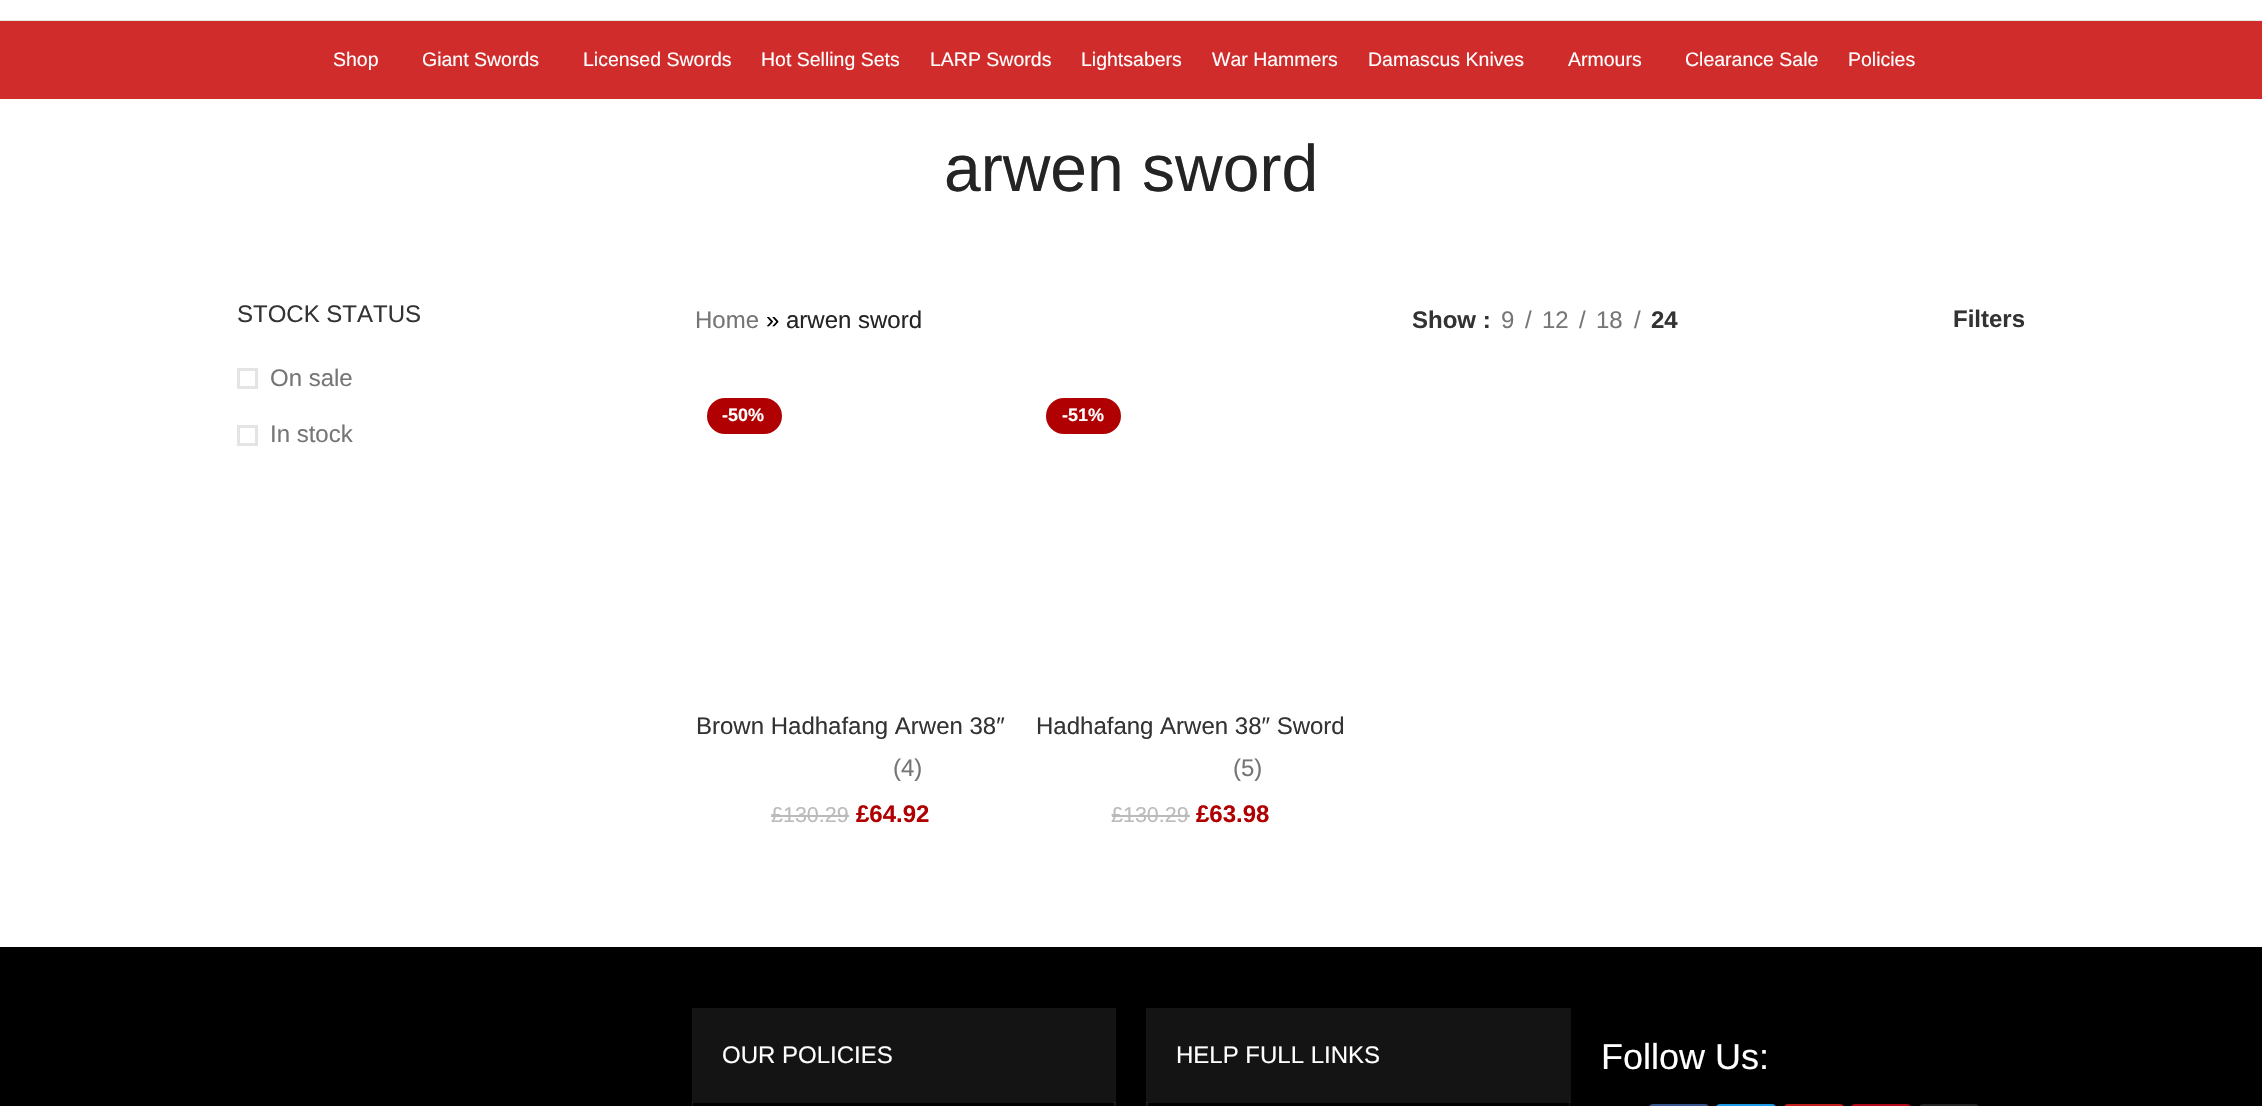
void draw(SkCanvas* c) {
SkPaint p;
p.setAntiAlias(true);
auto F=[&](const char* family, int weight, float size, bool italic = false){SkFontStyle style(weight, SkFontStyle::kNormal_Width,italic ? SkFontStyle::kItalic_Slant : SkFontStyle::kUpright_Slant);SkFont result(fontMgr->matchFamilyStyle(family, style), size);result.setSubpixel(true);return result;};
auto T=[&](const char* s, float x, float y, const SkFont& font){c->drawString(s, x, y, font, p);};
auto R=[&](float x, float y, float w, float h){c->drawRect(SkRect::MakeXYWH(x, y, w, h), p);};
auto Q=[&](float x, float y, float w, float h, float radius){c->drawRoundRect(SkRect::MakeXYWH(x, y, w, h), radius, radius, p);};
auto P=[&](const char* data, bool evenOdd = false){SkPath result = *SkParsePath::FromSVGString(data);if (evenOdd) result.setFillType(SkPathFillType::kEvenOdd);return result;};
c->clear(0xffffffff);
p.setColor(0xffe8e8e8);
R(0,20,2262,1);
p.setColor(0xffd12c2c);
R(0,21,2262,78);
auto f1 = F("Liberation Sans",400,19.5);
p.setColor(0xffffffff);
T("Shop",333,66,f1);
T("Giant Swords",422,66,f1);
T("Licensed Swords",583,66,f1);
T("Hot Selling Sets",761,66,f1);
T("LARP Swords",930,66,f1);
T("Lightsabers",1081,66,f1);
T("War Hammers",1212,66,f1);
T("Damascus Knives",1368,66,f1);
T("Armours",1568,66,f1);
T("Clearance Sale",1685,66,f1);
T("Policies",1848,66,f1);
auto f2 = F("Liberation Sans",400,66);
p.setColor(0xff242424);
T("arwen sword",944,191,f2);
auto f3 = F("Liberation Sans",400,24);
p.setColor(0xff333333);
T("STOCK STATUS",237,322,f3);
p.setStroke(true);
p.setStrokeWidth(3);
p.setColor(0xffe4e4e4);
c->drawRect(SkRect::MakeXYWH(238.5,369.5,18,18),p);
p.setStroke(false);
p.setColor(0xff767676);
T("On sale",270,386,f3);
p.setStroke(true);
p.setColor(0xffe4e4e4);
c->drawRect(SkRect::MakeXYWH(238.5,426.5,18,18),p);
p.setStroke(false);
p.setColor(0xff767676);
T("In stock",270,442,f3);
T("Home",695,328,f3);
p.setColor(0xff000000);
T("»",766,328,f3);
p.setColor(0xff242424);
T("arwen sword",786,328,f3);
auto f4 = F("Liberation Sans",700,24);
p.setColor(0xff333333);
T("Show :",1412,328,f4);
p.setColor(0xff767676);
T("9",1501,328,f3);
T("/",1525,328,f3);
T("12",1542,328,f3);
T("/",1579,328,f3);
T("18",1596,328,f3);
T("/",1634,328,f3);
p.setColor(0xff333333);
T("24",1651,328,f4);
T("Filters",1953,327,f4);
p.setColor(0xffb00001);
Q(707,398,75,36,18);
auto f5 = F("Liberation Sans",700,18);
p.setColor(0xffffffff);
T("-50%",722,421,f5);
p.setColor(0xff333333);
T("Brown Hadhafang Arwen 38″",696,734,f3);
p.setColor(0xff767676);
T("(4)",893,776,f3);
auto f6 = F("Liberation Sans",400,21.5);
p.setColor(0xffbbbbbb);
T("£130.29",771,822,f6);
R(771,815,78,2);
p.setColor(0xffb00001);
T("£64.92",856,822,f4);
Q(1046,398,75,36,18);
p.setColor(0xffffffff);
T("-51%",1062,421,f5);
p.setColor(0xff333333);
T("Hadhafang Arwen 38″ Sword",1036,734,f3);
p.setColor(0xff767676);
T("(5)",1233,776,f3);
p.setColor(0xffbbbbbb);
T("£130.29",1111,822,f6);
R(1112,815,78,2);
p.setColor(0xffb00001);
T("£63.98",1196,822,f4);
p.setColor(0xff000000);
R(0,947,2262,159);
p.setColor(0xff141414);
R(692,1008,424,95);
p.setColor(0xffffffff);
T("OUR POLICIES",722,1063,f3);
p.setColor(0x1affffff);
c->drawPath(P("M1116 1102v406l-2-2v-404z"),p);
c->drawPath(P("M692 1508v-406h1v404z"),p);
p.setColor(0xff141414);
R(1146,1008,425,95);
p.setColor(0xffffffff);
T("HELP FULL LINKS",1176,1063,f3);
p.setColor(0x1affffff);
c->drawPath(P("M1570 1102v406l-1-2v-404z"),p);
c->drawPath(P("M1146 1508v-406h2v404z"),p);
auto f7 = F("Liberation Sans",400,36);
p.setColor(0xffffffff);
T("Follow Us:",1601,1069,f7);
p.setColor(0xff3b5998);
Q(1649,1104,60,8,6);
p.setColor(0xff1da1f2);
Q(1716,1104,60,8,6);
p.setColor(0xffcd201f);
Q(1784,1104,60,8,6);
p.setColor(0xffbd081c);
Q(1851,1104,60,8,6);
p.setColor(0xff262626);
Q(1919,1104,60,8,6);
p.setColor(0x24000000);
p.setMaskFilter(SkMaskFilter::MakeBlur(kNormal_SkBlurStyle, 7));
c->drawRect(SkRect::MakeXYWH(0,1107,2262,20),p);
p.setMaskFilter(nullptr);
}
